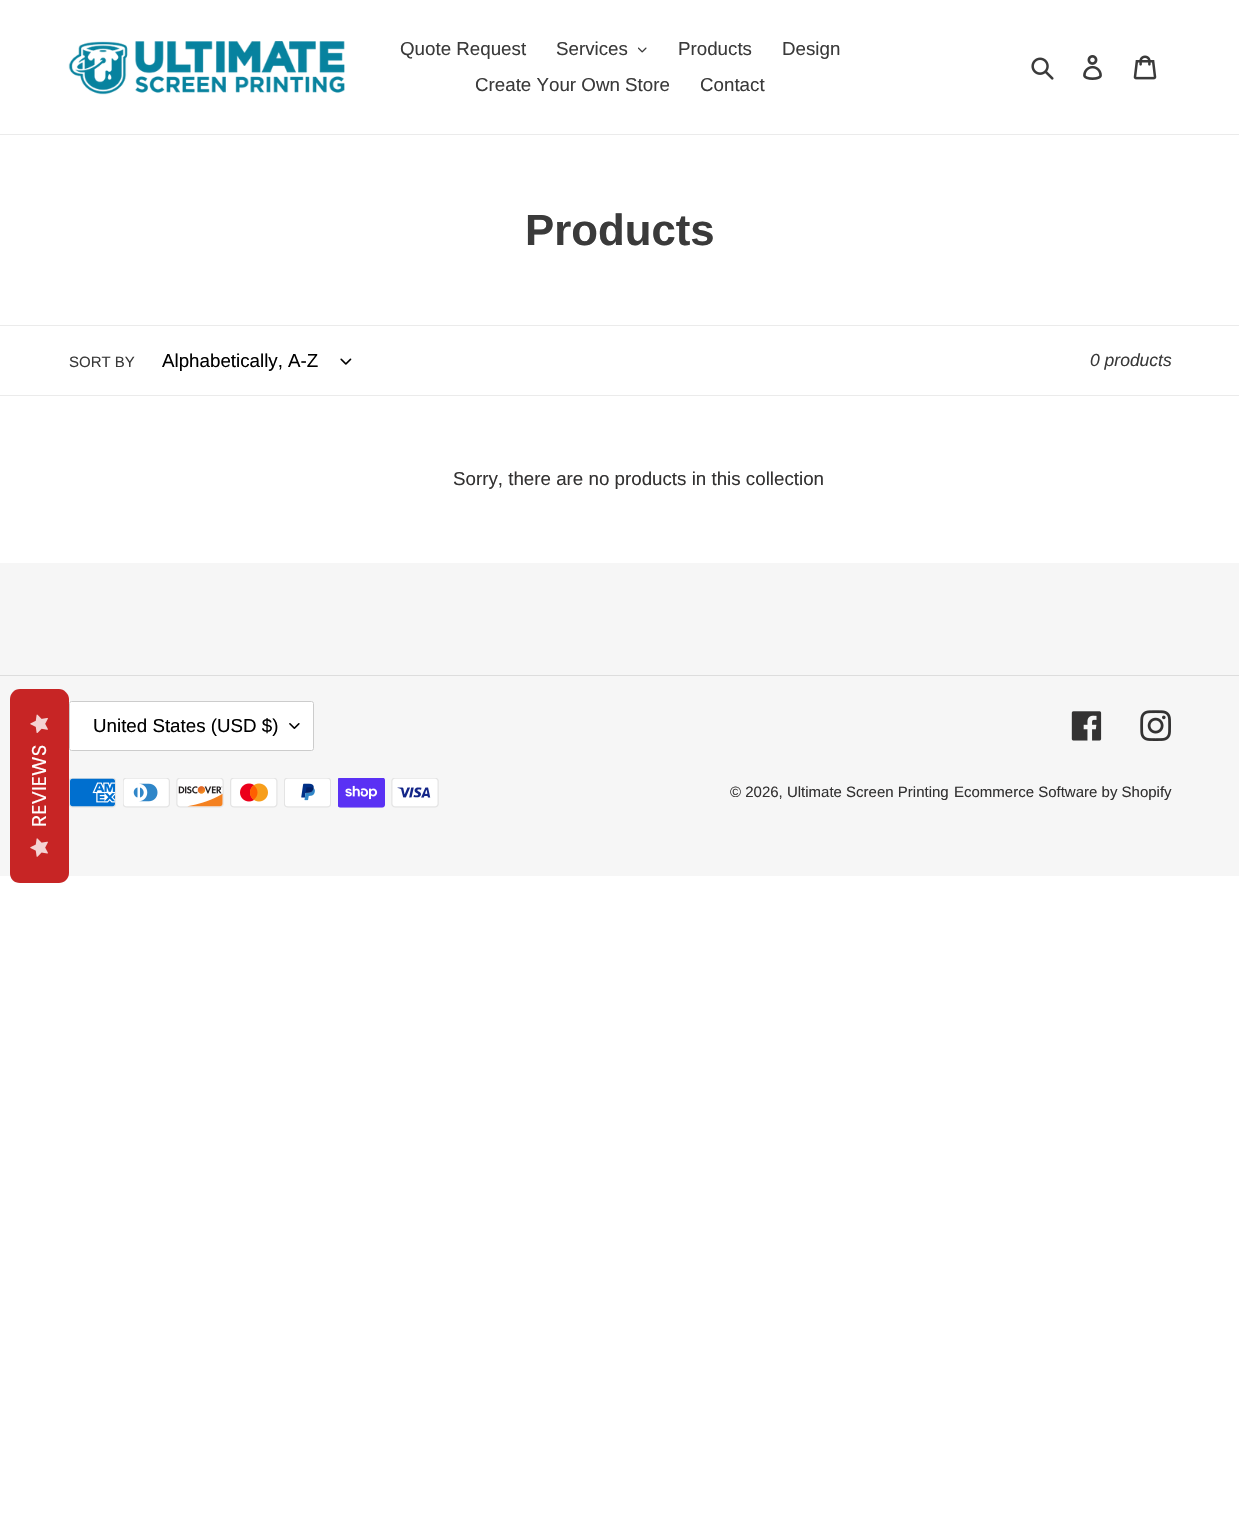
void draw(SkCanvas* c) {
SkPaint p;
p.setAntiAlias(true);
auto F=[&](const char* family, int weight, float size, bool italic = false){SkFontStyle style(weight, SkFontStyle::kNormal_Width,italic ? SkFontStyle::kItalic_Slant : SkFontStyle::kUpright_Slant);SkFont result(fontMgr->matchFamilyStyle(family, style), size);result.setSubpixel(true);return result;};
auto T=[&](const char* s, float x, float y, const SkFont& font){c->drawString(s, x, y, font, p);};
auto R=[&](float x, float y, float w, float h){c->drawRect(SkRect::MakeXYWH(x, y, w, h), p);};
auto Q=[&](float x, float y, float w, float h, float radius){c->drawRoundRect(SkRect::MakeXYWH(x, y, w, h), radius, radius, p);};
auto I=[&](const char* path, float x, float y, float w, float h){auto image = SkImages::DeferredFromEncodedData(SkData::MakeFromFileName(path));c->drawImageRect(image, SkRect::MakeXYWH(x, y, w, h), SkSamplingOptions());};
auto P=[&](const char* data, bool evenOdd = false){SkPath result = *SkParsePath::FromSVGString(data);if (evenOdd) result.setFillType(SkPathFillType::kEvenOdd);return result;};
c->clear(0xffffffff);
p.setColor(0xffebebeb);
R(0,134,1239,1);
I("1.png",68,41,277,54);
auto f1 = F("Liberation Sans",400,18.75);
p.setColor(0xff3a3a3a);
T("Quote Request",400,55,f1);
T("Services",556,55,f1);
I("2.png",638,47,9,6);
T("Products",678,55,f1);
T("Design",782,55,f1);
T("Create Your Own Store",475,91,f1);
T("Contact",700,91,f1);
I("3.png",1031,57,23,23);
I("4.png",1083,55,19,25);
I("5.png",1133,55,24,25);
p.setColor(0xfff6f6f6);
R(0,563,1239,313);
p.setColor(0xffc72525);
c->drawPath(P("M10 873v-174c0-5 4-10 10-10h39c5 0 10 5 10 10v174c0 6-5 10-10 10h-39c-6 0-10-4-10-10z"),p);
I("6.png",30,714,18,19);
auto f2 = F("Poppins",400,20);
p.setColor(0xffffffff);
c->save();
c->rotate(-90,46,827);
T("REVIEWS",46,827,f2);
c->restore();
I("7.png",30,838,18,19);
auto f3 = F("Liberation Sans",700,43.75);
p.setColor(0xff3a3a3a);
T("Products",525,245,f3);
p.setColor(0xffebebeb);
R(0,325,1239,1);
R(0,395,1239,1);
auto f4 = F("Liberation Sans",400,15);
p.setColor(0xff3a3a3a);
T("SORT BY",69,367,f4);
p.setColor(0xff000000);
T("Alphabetically, A-Z",162,367,f1);
I("8.png",340,358,12,7);
auto f5 = F("Liberation Sans",400,17.5,true);
p.setColor(0xff3a3a3a);
T("0 products",1090,366,f5);
p.setColor(0xff333232);
T("Sorry, there are no products in this collection",453,485,f1);
p.setColor(0xffdddddd);
R(0,675,1239,1);
p.setColor(0xffffffff);
Q(69,701,245,50,2.5);
I("9.png",289,723,11,6);
p.setStroke(true);
p.setStrokeWidth(1);
p.setColor(0xffcccccc);
c->drawRoundRect(SkRect::MakeXYWH(69.5,701.5,244,49),2,2,p);
p.setStroke(false);
p.setColor(0xff000000);
T("United States (USD $)",93,732,f1);
I("10.png",1071,711,31,30);
I("11.png",1140,710,31,31);
I("12.png",69,778,47,30);
I("13.png",123,778,47,30);
I("14.png",176,778,48,30);
I("15.png",230,778,48,30);
I("16.png",284,778,47,30);
I("17.png",338,778,47,30);
I("18.png",391,778,48,30);
p.setColor(0xff333232);
T("© 2026, Ultimate Screen Printing",730,797,f4);
T("Ecommerce Software by Shopify",954,797,f4);
}
